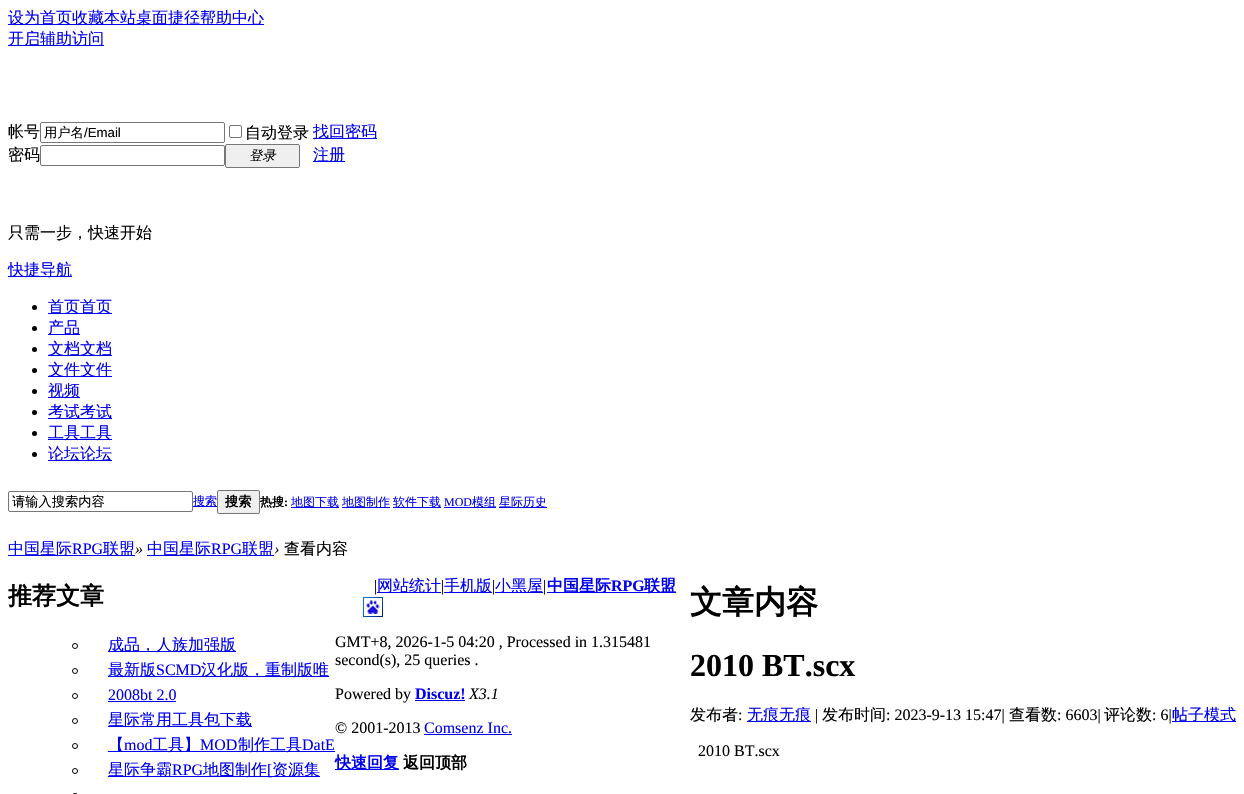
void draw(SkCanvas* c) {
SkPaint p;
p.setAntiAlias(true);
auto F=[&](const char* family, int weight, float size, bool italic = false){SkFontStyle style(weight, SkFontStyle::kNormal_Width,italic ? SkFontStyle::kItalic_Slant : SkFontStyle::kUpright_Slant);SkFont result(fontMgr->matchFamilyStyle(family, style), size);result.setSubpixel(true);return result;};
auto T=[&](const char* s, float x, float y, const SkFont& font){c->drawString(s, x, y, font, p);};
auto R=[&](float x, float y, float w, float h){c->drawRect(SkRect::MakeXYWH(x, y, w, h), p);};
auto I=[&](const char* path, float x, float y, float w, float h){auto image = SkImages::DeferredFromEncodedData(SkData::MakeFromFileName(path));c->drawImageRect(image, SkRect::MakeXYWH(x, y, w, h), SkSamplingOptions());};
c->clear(0xffffffff);
p.setColor(0xff0000ee);
R(8,24,256,1);
auto f1 = F("WenQuanYi Zen Hei",500,16);
T("设为首页收藏本站桌面捷径帮助中心",8,23,f1);
R(8,45,96,1);
T("开启辅助访问",8,44,f1);
p.setColor(0xff000000);
T("帐号",8,137,f1);
p.setStroke(true);
p.setStrokeWidth(1);
p.setColor(0xff767676);
c->drawRoundRect(SkRect::MakeXYWH(40.5,122.5,184,20),1.5,1.5,p);
auto f2 = F("WenQuanYi Zen Hei",500,13.25);
p.setStroke(false);
p.setColor(0xff000000);
T("用户名",44,137,f2);
auto f3 = F("Liberation Sans",400,13.25);
T("/Email",84,137,f3);
p.setStroke(true);
p.setColor(0xff767676);
c->drawRoundRect(SkRect::MakeXYWH(229.5,125.5,12,12),1.5,1.5,p);
p.setStroke(false);
p.setColor(0xff000000);
T("自动登录",245,138,f1);
p.setColor(0xff0000ee);
R(313,138,64,1);
T("找回密码",313,137,f1);
p.setColor(0xff000000);
T("密码",8,160,f1);
p.setStroke(true);
p.setColor(0xff767676);
c->drawRoundRect(SkRect::MakeXYWH(40.5,145.5,184,20),1.5,1.5,p);
p.setStroke(false);
p.setColor(0xffefefef);
c->drawRoundRect(SkRect::MakeXYWH(225.5,144.5,74,23),1.5,1.5,p);
p.setStroke(true);
p.setColor(0xff767676);
c->drawRoundRect(SkRect::MakeXYWH(225.5,144.5,74,23),1.5,1.5,p);
auto f4 = F("WenQuanYi Zen Hei",500,13.25,true);
p.setStroke(false);
p.setColor(0xff000000);
T("登录",249,160,f4);
p.setColor(0xff0000ee);
R(313,161,32,1);
T("注册",313,160,f1);
p.setColor(0xff000000);
T("只需一步，快速开始",8,238,f1);
p.setColor(0xff0000ee);
R(8,276,64,1);
T("快捷导航",8,275,f1);
p.setColor(0xff000000);
c->drawCircle(34.5,307.5,2.5,p);
p.setColor(0xff0000ee);
R(48,313,64,1);
T("首页首页",48,312,f1);
p.setColor(0xff000000);
c->drawCircle(34.5,328.5,2.5,p);
p.setColor(0xff0000ee);
R(48,334,32,1);
T("产品",48,333,f1);
p.setColor(0xff000000);
c->drawCircle(34.5,349.5,2.5,p);
p.setColor(0xff0000ee);
R(48,355,64,1);
T("文档文档",48,354,f1);
p.setColor(0xff000000);
c->drawCircle(34.5,370.5,2.5,p);
p.setColor(0xff0000ee);
R(48,376,64,1);
T("文件文件",48,375,f1);
p.setColor(0xff000000);
c->drawCircle(34.5,391.5,2.5,p);
p.setColor(0xff0000ee);
R(48,397,32,1);
T("视频",48,396,f1);
p.setColor(0xff000000);
c->drawCircle(34.5,412.5,2.5,p);
p.setColor(0xff0000ee);
R(48,418,64,1);
T("考试考试",48,417,f1);
p.setColor(0xff000000);
c->drawCircle(34.5,433.5,2.5,p);
p.setColor(0xff0000ee);
R(48,439,64,1);
T("工具工具",48,438,f1);
p.setColor(0xff000000);
c->drawCircle(34.5,454.5,2.5,p);
p.setColor(0xff0000ee);
R(48,460,64,1);
T("论坛论坛",48,459,f1);
p.setStroke(true);
p.setColor(0xff767676);
c->drawRoundRect(SkRect::MakeXYWH(8.5,491.5,184,20),1.5,1.5,p);
p.setStroke(false);
p.setColor(0xff000000);
T("请输入搜索内容",12,506,f2);
p.setColor(0xff0000ee);
R(193,506,24,1);
auto f5 = F("WenQuanYi Zen Hei",500,12);
T("搜索",193,505,f5);
p.setColor(0xffefefef);
c->drawRoundRect(SkRect::MakeXYWH(217.5,490.5,42,23),1.5,1.5,p);
p.setStroke(true);
p.setColor(0xff767676);
c->drawRoundRect(SkRect::MakeXYWH(217.5,490.5,42,23),1.5,1.5,p);
auto f6 = F("WenQuanYi Zen Hei",700,13.25);
p.setStroke(false);
p.setColor(0xff000000);
T("搜索",225,506,f6);
auto f7 = F("WenQuanYi Zen Hei",700,12);
T("热搜",260,506,f7);
auto f8 = F("Liberation Serif",700,12);
T(":",284,506,f8);
p.setColor(0xff0000ee);
R(291,507,48,1);
T("地图下载",291,506,f5);
R(342,507,48,1);
T("地图制作",342,506,f5);
R(393,507,48,1);
T("软件下载",393,506,f5);
auto f9 = F("Liberation Serif",400,12);
T("MOD",444,506,f9);
R(444,507,52,1);
T("模组",472,506,f5);
R(499,507,48,1);
T("星际历史",499,506,f5);
R(8,555,127,1);
T("中国星际",8,554,f1);
auto f10 = F("Liberation Serif",400,16);
T("RPG",72,554,f10);
T("联盟",103,554,f1);
auto f11 = F("Liberation Serif",400,16,true);
p.setColor(0xff000000);
T("»",135,554,f11);
p.setColor(0xff0000ee);
R(147,555,127,1);
T("中国星际",147,554,f1);
T("RPG",211,554,f10);
T("联盟",242,554,f1);
p.setColor(0xff000000);
T("›",274,554,f11);
T("查看内容",284,554,f1);
auto f12 = F("WenQuanYi Zen Hei",700,24);
T("推荐文章",8,604,f12);
p.setStroke(true);
c->drawCircle(75,646,2.5,p);
p.setStroke(false);
p.setColor(0xff0000ee);
R(108,651,128,1);
T("成品，人族加强版",108,650,f1);
p.setStroke(true);
p.setColor(0xff000000);
c->drawCircle(75,671,2.5,p);
p.setStroke(false);
p.setColor(0xff0000ee);
R(108,676,221,1);
T("最新版",108,675,f1);
T("SCMD",156,675,f10);
T("汉化版，重制版唯",201,675,f1);
p.setStroke(true);
p.setColor(0xff000000);
c->drawCircle(75,696,2.5,p);
p.setStroke(false);
p.setColor(0xff0000ee);
T("2008bt 2.0",108,700,f10);
R(108,701,68,1);
p.setStroke(true);
p.setColor(0xff000000);
c->drawCircle(75,721,2.5,p);
p.setStroke(false);
p.setColor(0xff0000ee);
R(108,726,144,1);
T("星际常用工具包下载",108,725,f1);
p.setStroke(true);
p.setColor(0xff000000);
c->drawCircle(75,746,2.5,p);
p.setStroke(false);
p.setColor(0xff0000ee);
R(108,751,227,1);
T("【",108,750,f1);
T("mod",124,750,f10);
T("工具】",152,750,f1);
T("MOD",200,750,f10);
T("制作工具",238,750,f1);
T("DatE",302,750,f10);
p.setStroke(true);
p.setColor(0xff000000);
c->drawCircle(75,771,2.5,p);
p.setStroke(false);
p.setColor(0xff0000ee);
R(108,776,212,1);
T("星际争霸",108,775,f1);
T("RPG",172,775,f10);
T("地图制作",203,775,f1);
T("[",267,775,f10);
T("资源集",272,775,f1);
p.setStroke(true);
p.setColor(0xff000000);
c->drawRoundRect(SkRect::MakeXYWH(72.5,793.5,5,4),2.5,2.5,p);
auto f13 = F("WenQuanYi Zen Hei",700,32);
p.setStroke(false);
T("文章内容",690,613,f13);
auto f14 = F("Liberation Serif",700,32);
T("2010 BT.scx",690,676,f14);
T("发布者",690,720,f1);
T(":",738,720,f10);
p.setColor(0xff0000ee);
R(747,721,64,1);
T("无痕无痕",747,720,f1);
p.setColor(0xff000000);
T("|",815,720,f10);
T("发布时间",822,720,f1);
T(": 2023-9-13 15:47|",886,720,f10);
T("查看数",1009,720,f1);
T(": 6603|",1057,720,f10);
T("评论数",1104,720,f1);
T(": 6|",1152,720,f10);
p.setColor(0xff0000ee);
R(1172,721,64,1);
T("帖子模式",1172,720,f1);
p.setColor(0xff000000);
T("2010 BT.scx",698,756,f10);
T("|",374,591,f10);
p.setColor(0xff0000ee);
R(377,592,64,1);
T("网站统计",377,591,f1);
p.setColor(0xff000000);
T("|",441,591,f10);
p.setColor(0xff0000ee);
R(444,592,48,1);
T("手机版",444,591,f1);
p.setColor(0xff000000);
T("|",492,591,f10);
p.setColor(0xff0000ee);
R(495,592,48,1);
T("小黑屋",495,591,f1);
p.setColor(0xff000000);
T("|",543,591,f10);
p.setColor(0xff0000ee);
R(547,592,129,1);
auto f15 = F("WenQuanYi Zen Hei",700,16);
T("中国星际",547,591,f15);
auto f16 = F("Liberation Serif",700,16);
T("RPG",611,591,f16);
T("联盟",644,591,f15);
I("1.png",363,597,20,20);
p.setColor(0xff000000);
T("GMT+8, 2026-1-5 04:20 , Processed in 1.315481",335,647,f10);
T("second(s), 25 queries .",335,665,f10);
T("Powered by",335,699,f10);
p.setColor(0xff0000ee);
T("Discuz!",415,699,f16);
R(415,700,50,1);
p.setColor(0xff000000);
T("X3.1",469,699,f11);
T("© 2001-2013",335,733,f10);
p.setColor(0xff0000ee);
T("Comsenz Inc.",424,733,f10);
R(424,734,88,1);
R(335,769,64,1);
T("快速回复",335,768,f15);
p.setColor(0xff000000);
T("返回顶部",403,768,f15);
}
